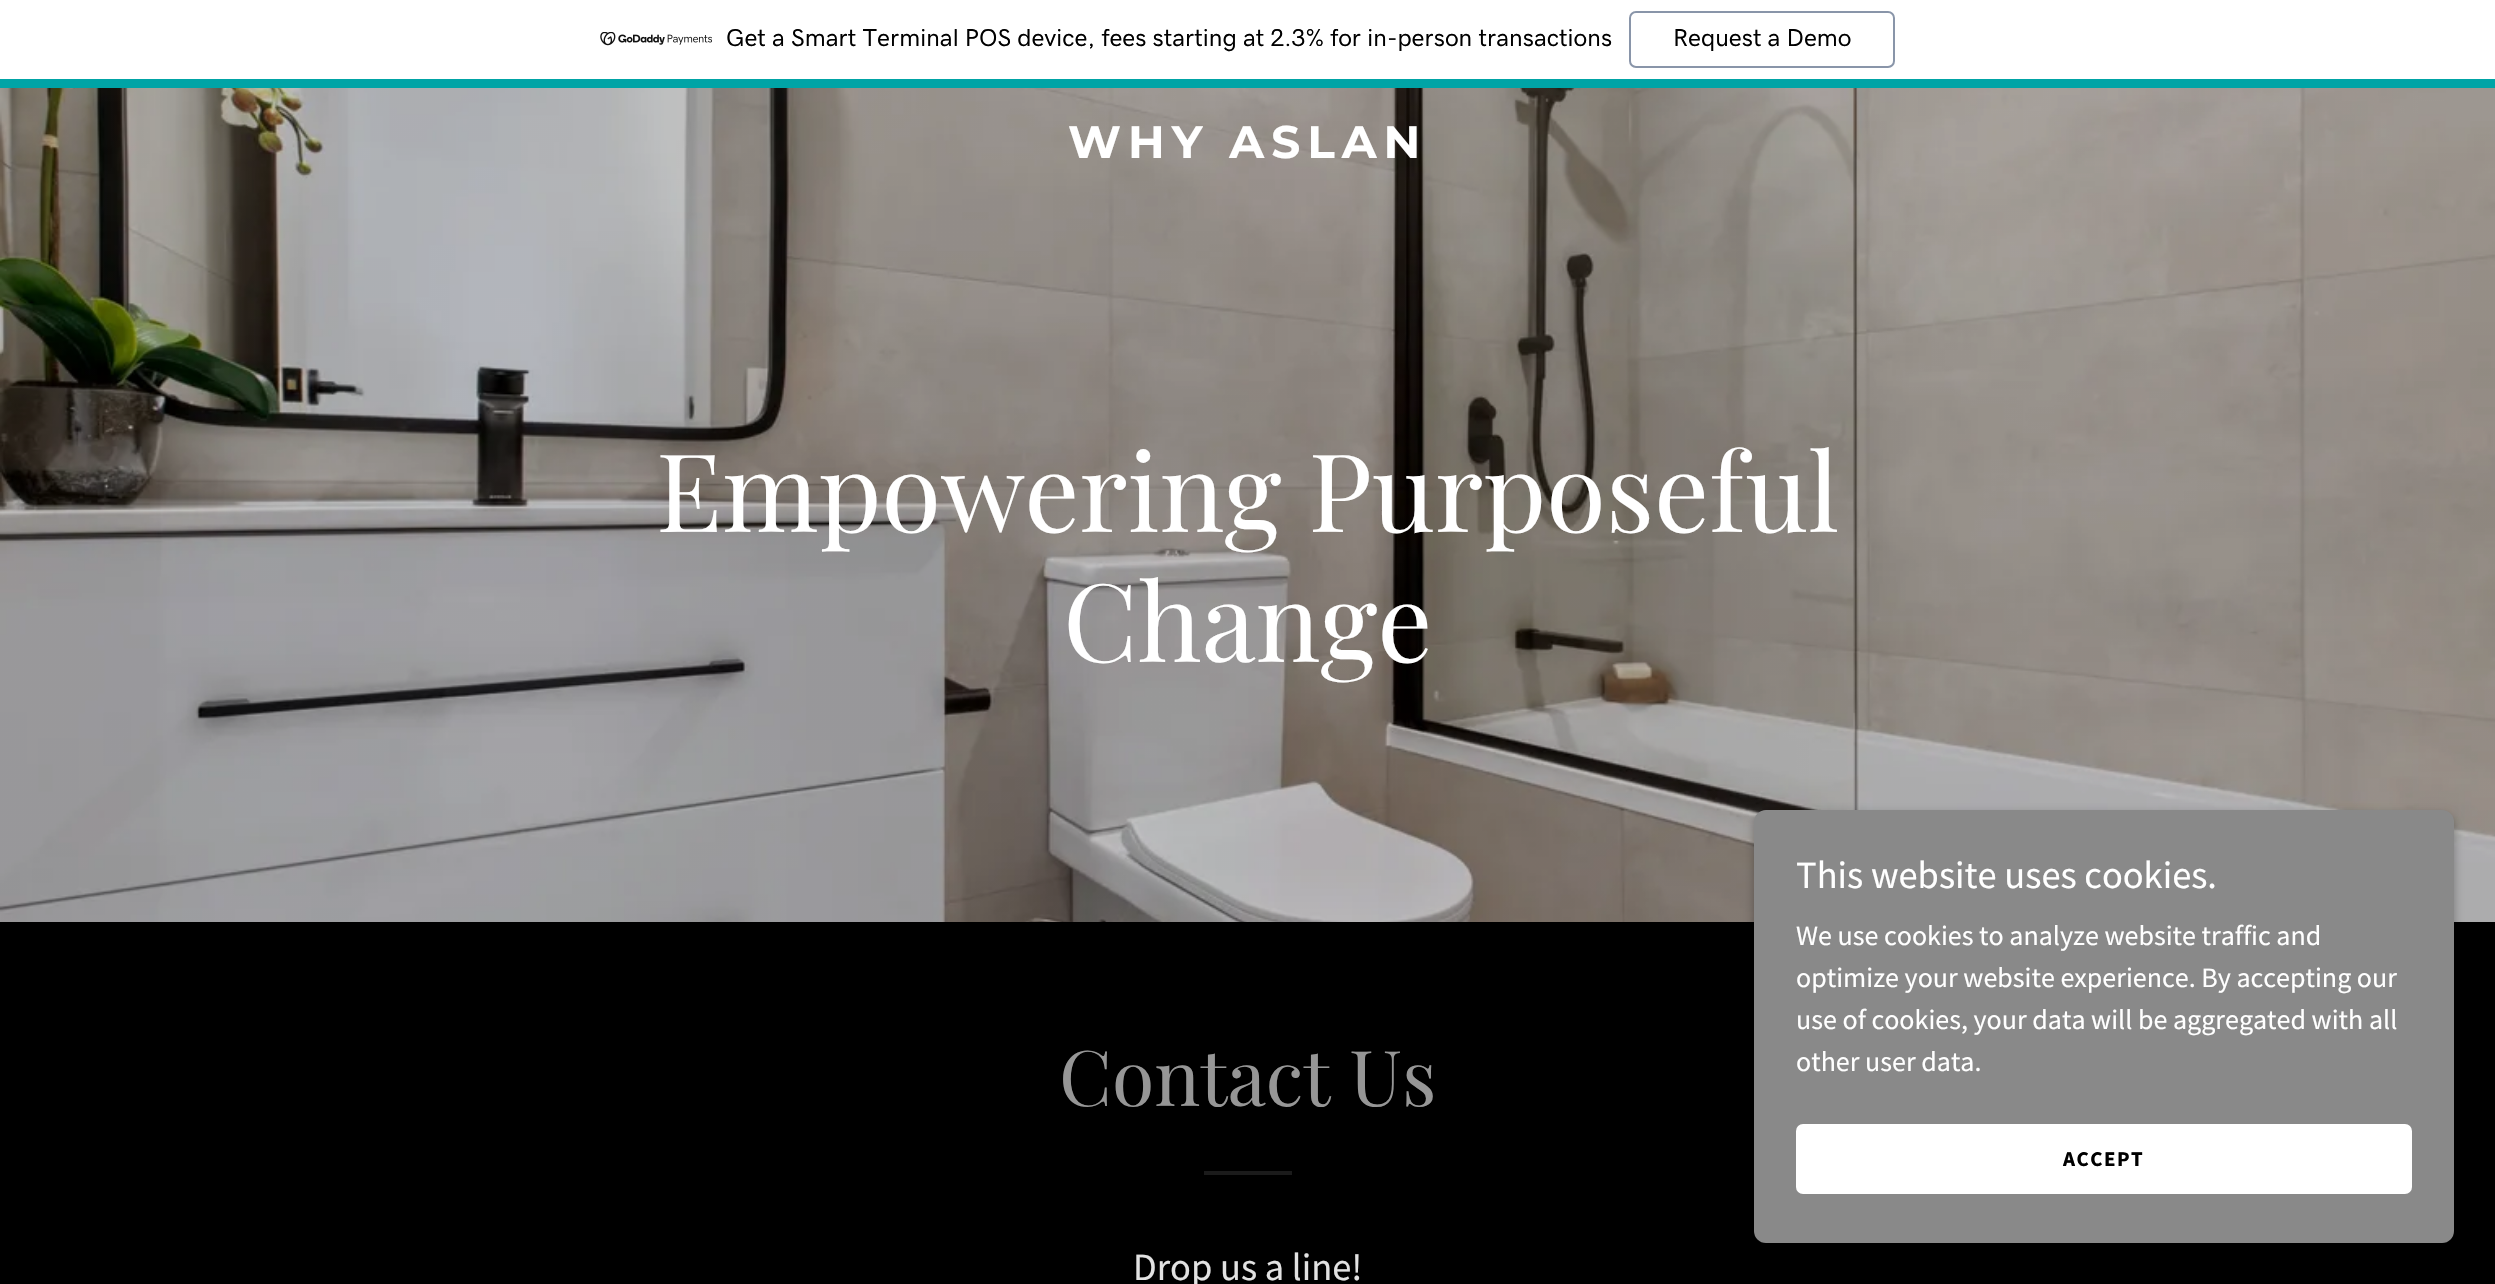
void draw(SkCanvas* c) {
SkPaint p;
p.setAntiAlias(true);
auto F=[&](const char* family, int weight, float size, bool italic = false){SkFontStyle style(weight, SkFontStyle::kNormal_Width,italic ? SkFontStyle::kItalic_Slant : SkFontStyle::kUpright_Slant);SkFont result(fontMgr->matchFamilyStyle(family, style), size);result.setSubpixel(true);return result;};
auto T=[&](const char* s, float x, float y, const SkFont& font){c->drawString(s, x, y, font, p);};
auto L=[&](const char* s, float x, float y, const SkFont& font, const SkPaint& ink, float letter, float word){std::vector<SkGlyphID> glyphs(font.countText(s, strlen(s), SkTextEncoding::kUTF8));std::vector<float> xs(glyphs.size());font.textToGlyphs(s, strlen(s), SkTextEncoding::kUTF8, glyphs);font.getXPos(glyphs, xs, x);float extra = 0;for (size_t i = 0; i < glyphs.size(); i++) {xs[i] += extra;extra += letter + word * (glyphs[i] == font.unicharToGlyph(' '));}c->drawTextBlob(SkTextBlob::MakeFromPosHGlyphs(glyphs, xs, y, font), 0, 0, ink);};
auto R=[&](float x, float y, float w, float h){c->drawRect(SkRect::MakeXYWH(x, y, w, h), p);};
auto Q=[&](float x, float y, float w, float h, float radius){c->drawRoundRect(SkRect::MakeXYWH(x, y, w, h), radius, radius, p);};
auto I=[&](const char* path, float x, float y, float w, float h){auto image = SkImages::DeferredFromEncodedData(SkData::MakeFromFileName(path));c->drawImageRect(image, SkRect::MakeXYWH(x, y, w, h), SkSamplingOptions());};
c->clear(0xffffffff);
p.setColor(0xff00a4a6);
R(0,79,2495,9);
I("1.png",600,32,112,14);
auto f1 = F("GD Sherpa",500,24.5);
p.setColor(0xff000000);
T("Get a Smart Terminal POS device, fees starting at 2.3% for in-person transactions",726,46,f1);
p.setStroke(true);
p.setStrokeWidth(2);
p.setColor(0xff8995a9);
c->drawRoundRect(SkRect::MakeXYWH(1630,12,264,55),6,6,p);
p.setStroke(false);
p.setColor(0xff000000);
T("Request a Demo",1673,46,f1);
I("2.png",0,88,2495,834);
auto f2 = F("Montserrat",700,45.5);
p.setColor(0xffffffff);
L("WHY ASLAN",1068,158,f2,p,7,0);
auto f3 = F("Playfair Display",400,108.5);
T("Empowering Purposeful",656,532,f3);
T("Change",1063,662,f3);
p.setColor(0xff000000);
R(0,922,2495,362);
auto f4 = F("Playfair Display",400,77);
p.setColor(0xff969696);
T("Contact Us",1059,1106,f4);
p.setColor(0xff1b1b1b);
R(1204,1171,88,4);
auto f5 = F("Source Sans Pro",400,38.5);
p.setColor(0xffe2e2e2);
T("Drop us a line!",1133,1280,f5);
p.setColor(0x4d000000);
p.setMaskFilter(SkMaskFilter::MakeBlur(kNormal_SkBlurStyle, 5));
c->drawRoundRect(SkRect::MakeXYWH(1754,814,700,432),12,12,p);
p.setMaskFilter(nullptr);
p.setColor(0xff898989);
Q(1754,810,700,433,12);
p.setColor(0xffffffff);
T("This website uses cookies.",1796,888,f5);
auto f6 = F("Source Sans Pro",400,28);
T("We use cookies to analyze website traffic and",1796,945,f6);
T("optimize your website experience. By accepting our",1796,987,f6);
T("use of cookies, your data will be aggregated with all",1796,1029,f6);
T("other user data.",1796,1071,f6);
Q(1796,1124,616,70,7);
auto f7 = F("Source Sans Pro",700,21);
p.setColor(0xff000000);
L("ACCEPT",2063,1166,f7,p,1.5,0);
}
